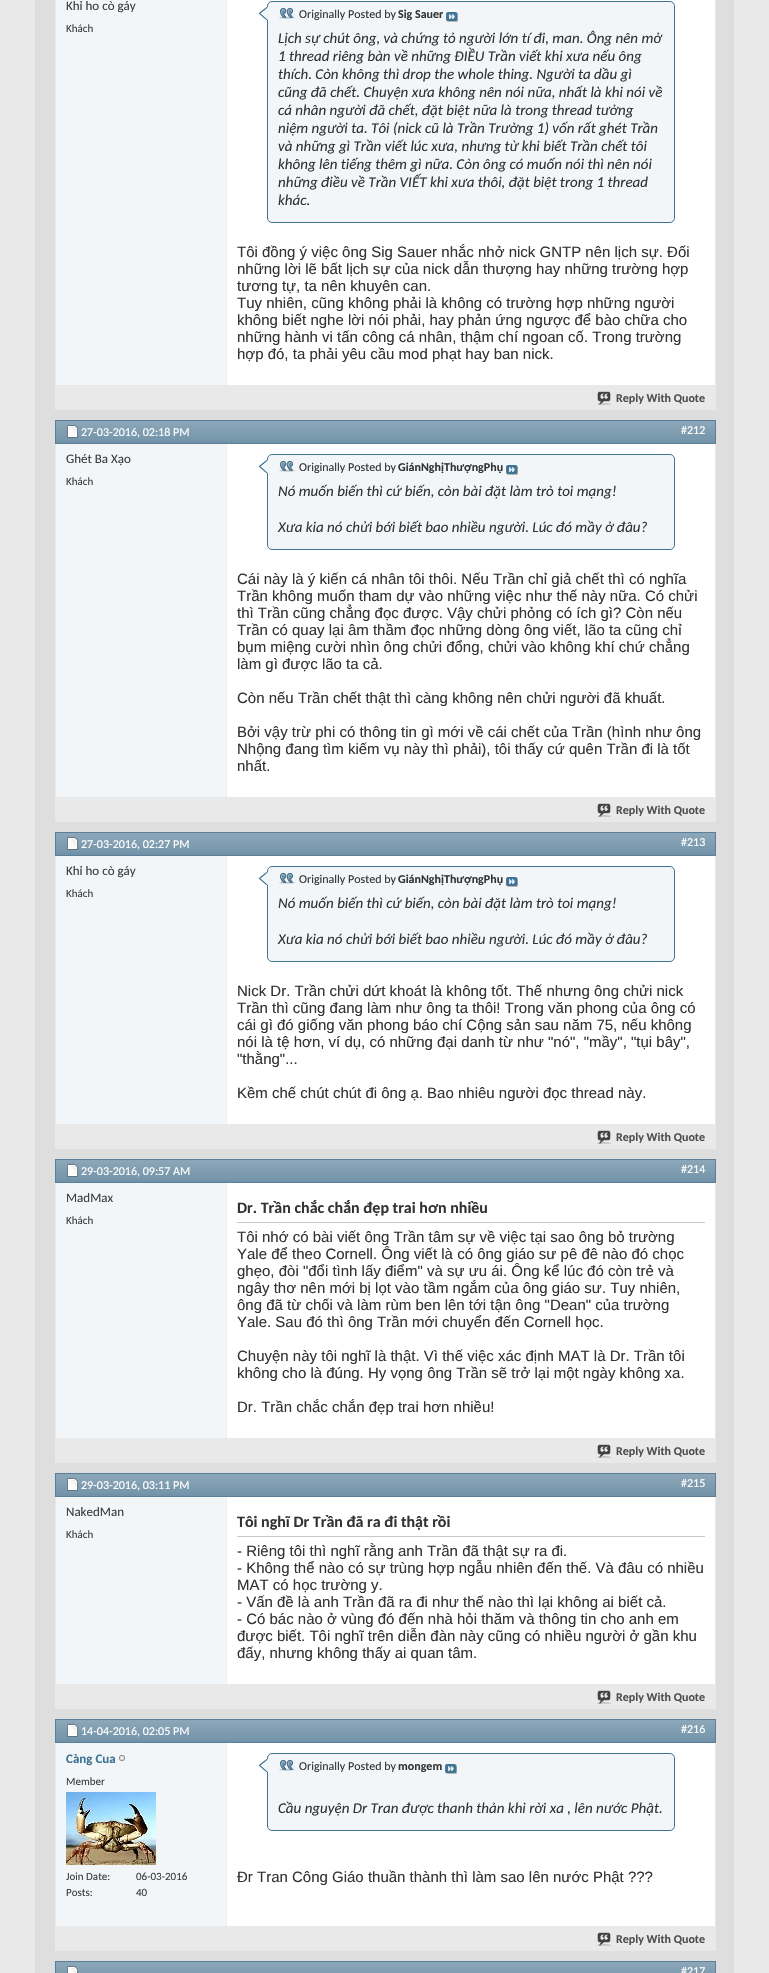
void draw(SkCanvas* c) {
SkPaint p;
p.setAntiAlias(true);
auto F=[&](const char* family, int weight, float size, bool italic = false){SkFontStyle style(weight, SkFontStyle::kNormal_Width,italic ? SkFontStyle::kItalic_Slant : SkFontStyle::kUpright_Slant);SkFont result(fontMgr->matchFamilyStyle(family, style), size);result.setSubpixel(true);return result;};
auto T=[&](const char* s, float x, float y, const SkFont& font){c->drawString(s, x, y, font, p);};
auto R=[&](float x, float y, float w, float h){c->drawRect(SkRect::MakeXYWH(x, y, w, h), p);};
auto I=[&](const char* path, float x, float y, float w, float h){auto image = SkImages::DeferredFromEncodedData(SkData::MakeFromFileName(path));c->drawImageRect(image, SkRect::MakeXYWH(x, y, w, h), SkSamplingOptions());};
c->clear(0xffe9e9e9);
p.setColor(0xffdedede);
R(35,0,699,1973);
p.setStroke(true);
p.setStrokeWidth(1);
p.setColor(0xffe9e9e9);
c->drawRect(SkRect::MakeXYWH(55.5,-.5,660,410),p);
p.setStroke(false);
p.setColor(0xfff2f6f8);
R(56,0,170,385);
auto f1 = F("Carlito",400,13);
p.setColor(0xff3e3e3e);
T("Khỉ ho cò gáy",66,10,f1);
auto f2 = F("Carlito",400,11);
T("Khách",66,32,f2);
p.setColor(0xffffffff);
R(227,0,488,385);
p.setColor(0xffefefef);
R(226,0,1,385);
p.setColor(0xfff2f6f8);
c->drawRoundRect(SkRect::MakeXYWH(267.5,1.5,407,221),4.5,4.5,p);
p.setStroke(true);
p.setColor(0xff417394);
c->drawRoundRect(SkRect::MakeXYWH(267.5,1.5,407,221),4.5,4.5,p);
I("1.png",259,7,9,13);
I("2.png",278,8,18,11);
auto f3 = F("Carlito",400,12);
p.setStroke(false);
p.setColor(0xff333333);
T("Originally Posted by",299,18,f3);
auto f4 = F("Carlito",700,12);
T("Sig Sauer",398,18,f4);
I("3.png",446,12,12,10);
auto f5 = F("Carlito",400,15,true);
T("Lịch sự chút ông, và chứng tỏ người lớn tí đi, man. Ông nên mở",278,43,f5);
T("1 thread riêng bàn về những ĐIỀU Trần viết khi xưa nếu ông",278,61,f5);
T("thích. Còn không thì drop the whole thing. Người ta dầu gì",278,79,f5);
T("cũng đã chết. Chuyện xưa không nên nói nữa, nhất là khi nói về",278,97,f5);
T("cá nhân người đã chết, đặt biệt nữa là trong thread tưởng",278,115,f5);
T("niệm người ta. Tôi (nick cũ là Trần Trường 1) vốn rất ghét Trần",278,133,f5);
T("và những gì Trần viết lúc xưa, nhưng từ khi biết Trần chết tôi",278,151,f5);
T("không lên tiếng thêm gì nữa. Còn ông có muốn nói thì nên nói",278,169,f5);
T("những điều về Trần VIẾT khi xưa thôi, đặt biệt trong 1 thread",278,187,f5);
T("khác.",278,205,f5);
auto f6 = F("Liberation Sans",400,15);
T("Tôi đồng ý việc ông Sig Sauer nhắc nhở nick GNTP nên lịch sự. Đối",237,257,f6);
T("những lời lẽ bất lịch sự của nick dẫn thượng hay những trường hợp",237,274,f6);
T("tương tự, ta nên khuyên can.",237,291,f6);
T("Tuy nhiên, cũng không phải là không có trường hợp những người",237,308,f6);
T("không biết nghe lời nói phải, hay phản ứng ngược để bào chữa cho",237,325,f6);
T("những hành vi tấn công cá nhân, thậm chí ngoan cố. Trong trường",237,342,f6);
c->save();
c->clipRect(SkRect::MakeXYWH(237,0,468,362));
T("hợp đó, ta phải yêu cầu mod phạt hay ban nick.",237,359,f6);
c->restore();
p.setColor(0xffe9e9e9);
R(56,385,659,24);
I("4.png",597,391,14,14);
p.setColor(0xff4e4e4e);
T("Reply With Quote",616,402,f4);
p.setStroke(true);
p.setColor(0xffe9e9e9);
c->drawRect(SkRect::MakeXYWH(55.5,420.5,660,401),p);
p.setStroke(false);
p.setColor(0xff7192a8);
R(56,421,659,22);
I("5.png",56,421,659,20);
p.setStroke(true);
p.setColor(0xff5a7f97);
c->drawRect(SkRect::MakeXYWH(55.5,420.5,660,23),p);
I("6.png",67,425,11,13);
p.setStroke(false);
p.setColor(0xffffffff);
T("27-03-2016, 02:18 PM",81,436,f3);
T("#212",681,434,f3);
p.setColor(0xfff2f6f8);
R(56,444,170,353);
p.setColor(0xff3e3e3e);
T("Ghét Ba Xạo",66,463,f1);
T("Khách",66,485,f2);
p.setColor(0xffffffff);
R(227,444,488,353);
p.setColor(0xffefefef);
R(226,444,1,353);
p.setColor(0xfff2f6f8);
c->drawRoundRect(SkRect::MakeXYWH(267.5,454.5,407,95),4.5,4.5,p);
p.setStroke(true);
p.setColor(0xff417394);
c->drawRoundRect(SkRect::MakeXYWH(267.5,454.5,407,95),4.5,4.5,p);
I("1.png",259,460,9,13);
I("2.png",278,461,18,11);
p.setStroke(false);
p.setColor(0xff333333);
T("Originally Posted by",299,471,f3);
T("GiánNghịThượngPhụ",398,471,f4);
I("3.png",506,465,12,10);
T("Nó muốn biến thì cứ biến, còn bài đặt làm trò toi mạng!",278,496,f5);
T("Xưa kia nó chửi bới biết bao nhiều người. Lúc đó mầy ở đâu?",278,532,f5);
T("Cái này là ý kiến cá nhân tôi thôi. Nếu Trần chỉ giả chết thì có nghĩa",237,584,f6);
T("Trần không muốn tham dự vào những việc như thế này nữa. Có chửi",237,601,f6);
T("thì Trần cũng chẳng đọc được. Vậy chửi phỏng có ích gì? Còn nếu",237,618,f6);
T("Trần có quay lại âm thầm đọc những dòng ông viết, lão ta cũng chỉ",237,635,f6);
T("bụm miệng cười nhìn ông chửi đổng, chửi vào không khí chứ chẳng",237,652,f6);
T("làm gì được lão ta cả.",237,669,f6);
T("Còn nếu Trần chết thật thì càng không nên chửi người đã khuất.",237,703,f6);
T("Bởi vậy trừ phi có thông tin gì mới về cái chết của Trần (hình như ông",237,737,f6);
T("Nhộng đang tìm kiếm vụ này thì phải), tôi thấy cứ quên Trần đi là tốt",237,754,f6);
T("nhất.",237,771,f6);
p.setColor(0xffe9e9e9);
R(56,797,659,24);
I("4.png",597,803,14,14);
p.setColor(0xff4e4e4e);
T("Reply With Quote",616,814,f4);
p.setStroke(true);
p.setColor(0xffe9e9e9);
c->drawRect(SkRect::MakeXYWH(55.5,832.5,660,316),p);
p.setStroke(false);
p.setColor(0xff7192a8);
R(56,833,659,22);
I("5.png",56,833,659,20);
p.setStroke(true);
p.setColor(0xff5a7f97);
c->drawRect(SkRect::MakeXYWH(55.5,832.5,660,23),p);
I("6.png",67,837,11,13);
p.setStroke(false);
p.setColor(0xffffffff);
T("27-03-2016, 02:27 PM",81,848,f3);
T("#213",681,846,f3);
p.setColor(0xfff2f6f8);
R(56,856,170,268);
p.setColor(0xff3e3e3e);
T("Khỉ ho cò gáy",66,875,f1);
T("Khách",66,897,f2);
p.setColor(0xffffffff);
R(227,856,488,268);
p.setColor(0xffefefef);
R(226,856,1,268);
p.setColor(0xfff2f6f8);
c->drawRoundRect(SkRect::MakeXYWH(267.5,866.5,407,95),4.5,4.5,p);
p.setStroke(true);
p.setColor(0xff417394);
c->drawRoundRect(SkRect::MakeXYWH(267.5,866.5,407,95),4.5,4.5,p);
I("1.png",259,872,9,13);
I("2.png",278,873,18,11);
p.setStroke(false);
p.setColor(0xff333333);
T("Originally Posted by",299,883,f3);
T("GiánNghịThượngPhụ",398,883,f4);
I("3.png",506,877,12,10);
T("Nó muốn biến thì cứ biến, còn bài đặt làm trò toi mạng!",278,908,f5);
T("Xưa kia nó chửi bới biết bao nhiều người. Lúc đó mầy ở đâu?",278,944,f5);
T("Nick Dr. Trần chửi dứt khoát là không tốt. Thế nhưng ông chửi nick",237,996,f6);
T("Trần thì cũng đang làm như ông ta thôi! Trong văn phong của ông có",237,1013,f6);
T("cái gì đó giống văn phong báo chí Cộng sản sau năm 75, nếu không",237,1030,f6);
T("nói là tệ hơn, ví dụ, có những đại danh từ như \"nó\", \"mầy\", \"tụi bây\",",237,1047,f6);
T("\"thằng\"...",237,1064,f6);
c->save();
c->clipRect(SkRect::MakeXYWH(237,861,468,240));
T("Kềm chế chút chút đi ông ạ. Bao nhiêu người đọc thread này.",237,1098,f6);
c->restore();
p.setColor(0xffe9e9e9);
R(56,1124,659,24);
I("4.png",597,1130,14,14);
p.setColor(0xff4e4e4e);
T("Reply With Quote",616,1141,f4);
p.setStroke(true);
p.setColor(0xffe9e9e9);
c->drawRect(SkRect::MakeXYWH(55.5,1159.5,660,303),p);
p.setStroke(false);
p.setColor(0xff7192a8);
R(56,1160,659,22);
I("5.png",56,1160,659,20);
p.setStroke(true);
p.setColor(0xff5a7f97);
c->drawRect(SkRect::MakeXYWH(55.5,1159.5,660,23),p);
I("6.png",67,1164,11,13);
p.setStroke(false);
p.setColor(0xffffffff);
T("29-03-2016, 09:57 AM",81,1175,f3);
T("#214",681,1173,f3);
p.setColor(0xfff2f6f8);
R(56,1183,170,255);
p.setColor(0xff3e3e3e);
T("MadMax",66,1202,f1);
T("Khách",66,1224,f2);
p.setColor(0xffffffff);
R(227,1183,488,255);
p.setColor(0xffefefef);
R(226,1183,1,255);
p.setColor(0xffc8c8c8);
R(237,1222,468,1);
auto f7 = F("Carlito",700,16);
p.setColor(0xff333333);
T("Dr. Trần chắc chắn đẹp trai hơn nhiều",237,1213,f7);
T("Tôi nhớ có bài viết ông Trần tâm sự về việc tại sao ông bỏ trường",237,1242,f6);
T("Yale để theo Cornell. Ông viết là có ông giáo sư pê đê nào đó chọc",237,1259,f6);
T("ghẹo, đòi \"đổi tình lấy điểm\" và sự ưu ái. Ông kể lúc đó còn trẻ và",237,1276,f6);
T("ngây thơ nên mới bị lọt vào tầm ngắm của ông giáo sư. Tuy nhiên,",237,1293,f6);
T("ông đã từ chối và làm rùm ben lên tới tận ông \"Dean\" của trường",237,1310,f6);
T("Yale. Sau đó thì ông Trần mới chuyển đến Cornell học.",237,1327,f6);
T("Chuyện này tôi nghĩ là thật. Vì thế việc xác định MAT là Dr. Trần tôi",237,1361,f6);
T("không cho là đúng. Hy vọng ông Trần sẽ trở lại một ngày không xa.",237,1378,f6);
T("Dr. Trần chắc chắn đẹp trai hơn nhiều!",237,1412,f6);
p.setColor(0xffe9e9e9);
R(56,1438,659,24);
I("4.png",597,1444,14,14);
p.setColor(0xff4e4e4e);
T("Reply With Quote",616,1455,f4);
p.setStroke(true);
p.setColor(0xffe9e9e9);
c->drawRect(SkRect::MakeXYWH(55.5,1473.5,660,235),p);
p.setStroke(false);
p.setColor(0xff7192a8);
R(56,1474,659,22);
I("5.png",56,1474,659,20);
p.setStroke(true);
p.setColor(0xff5a7f97);
c->drawRect(SkRect::MakeXYWH(55.5,1473.5,660,23),p);
I("6.png",67,1478,11,13);
p.setStroke(false);
p.setColor(0xffffffff);
T("29-03-2016, 03:11 PM",81,1489,f3);
T("#215",681,1487,f3);
p.setColor(0xfff2f6f8);
R(56,1497,170,187);
p.setColor(0xff3e3e3e);
T("NakedMan",66,1516,f1);
T("Khách",66,1538,f2);
p.setColor(0xffffffff);
R(227,1497,488,187);
p.setColor(0xffefefef);
R(226,1497,1,187);
p.setColor(0xffc8c8c8);
R(237,1536,468,1);
p.setColor(0xff333333);
T("Tôi nghĩ Dr Trần đã ra đi thật rồi",237,1527,f7);
T("- Riêng tôi thì nghĩ rằng anh Trần đã thật sự ra đi.",237,1556,f6);
T("- Không thể nào có sự trùng hợp ngẫu nhiên đến thế. Và đâu có nhiều",237,1573,f6);
T("MAT có học trường y.",237,1590,f6);
T("- Vấn đề là anh Trần đã ra đi như thế nào thì lại không ai biết cả.",237,1607,f6);
T("- Có bác nào ở vùng đó đến nhà hỏi thăm và thông tin cho anh em",237,1624,f6);
T("được biết. Tôi nghĩ trên diễn đàn này cũng có nhiều người ở gần khu",237,1641,f6);
c->save();
c->clipRect(SkRect::MakeXYWH(237,1542,468,119));
T("đấy, nhưng không thấy ai quan tâm.",237,1658,f6);
c->restore();
p.setColor(0xffe9e9e9);
R(56,1684,659,24);
I("4.png",597,1690,14,14);
p.setColor(0xff4e4e4e);
T("Reply With Quote",616,1701,f4);
p.setStroke(true);
p.setColor(0xffe9e9e9);
c->drawRect(SkRect::MakeXYWH(55.5,1719.5,660,231),p);
p.setStroke(false);
p.setColor(0xff7192a8);
R(56,1720,659,22);
I("5.png",56,1720,659,20);
p.setStroke(true);
p.setColor(0xff5a7f97);
c->drawRect(SkRect::MakeXYWH(55.5,1719.5,660,23),p);
I("6.png",67,1724,11,13);
p.setStroke(false);
p.setColor(0xffffffff);
T("14-04-2016, 02:05 PM",81,1735,f3);
T("#216",681,1733,f3);
p.setColor(0xfff2f6f8);
R(56,1743,170,183);
auto f8 = F("Carlito",700,13);
p.setColor(0xff417394);
T("Càng Cua",66,1763,f8);
I("7.png",119,1755,6,6);
p.setColor(0xff3e3e3e);
T("Member",66,1785,f2);
I("8.png",66,1792,90,73);
T("Join Date:",66,1880,f2);
T("06-03-2016",136,1880,f2);
T("Posts:",66,1896,f2);
T("40",136,1896,f2);
p.setColor(0xffffffff);
R(227,1743,488,183);
p.setColor(0xffefefef);
R(226,1743,1,183);
p.setColor(0xfff2f6f8);
c->drawRoundRect(SkRect::MakeXYWH(267.5,1753.5,407,77),4.5,4.5,p);
p.setStroke(true);
p.setColor(0xff417394);
c->drawRoundRect(SkRect::MakeXYWH(267.5,1753.5,407,77),4.5,4.5,p);
I("1.png",259,1759,9,13);
I("2.png",278,1760,18,11);
p.setStroke(false);
p.setColor(0xff333333);
T("Originally Posted by",299,1770,f3);
T("mongem",398,1770,f4);
I("3.png",445,1764,12,10);
T("Cầu nguyện Dr Tran được thanh thản khi rời xa , lên nước Phật.",278,1813,f5);
T("Đr Tran Công Giáo thuần thành thì làm sao lên nước Phật ?\077?",237,1882,f6);
p.setColor(0xffe9e9e9);
R(56,1926,659,24);
I("4.png",597,1932,14,14);
p.setColor(0xff4e4e4e);
T("Reply With Quote",616,1943,f4);
p.setColor(0xff7192a8);
R(56,1962,659,11);
I("9.png",56,1962,659,11);
p.setStroke(true);
p.setColor(0xff5a7f97);
c->drawRect(SkRect::MakeXYWH(55.5,1961.5,660,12),p);
I("10.png",67,1966,11,7);
p.setStroke(false);
p.setColor(0xffffffff);
T("#217",681,1975,f3);
}
